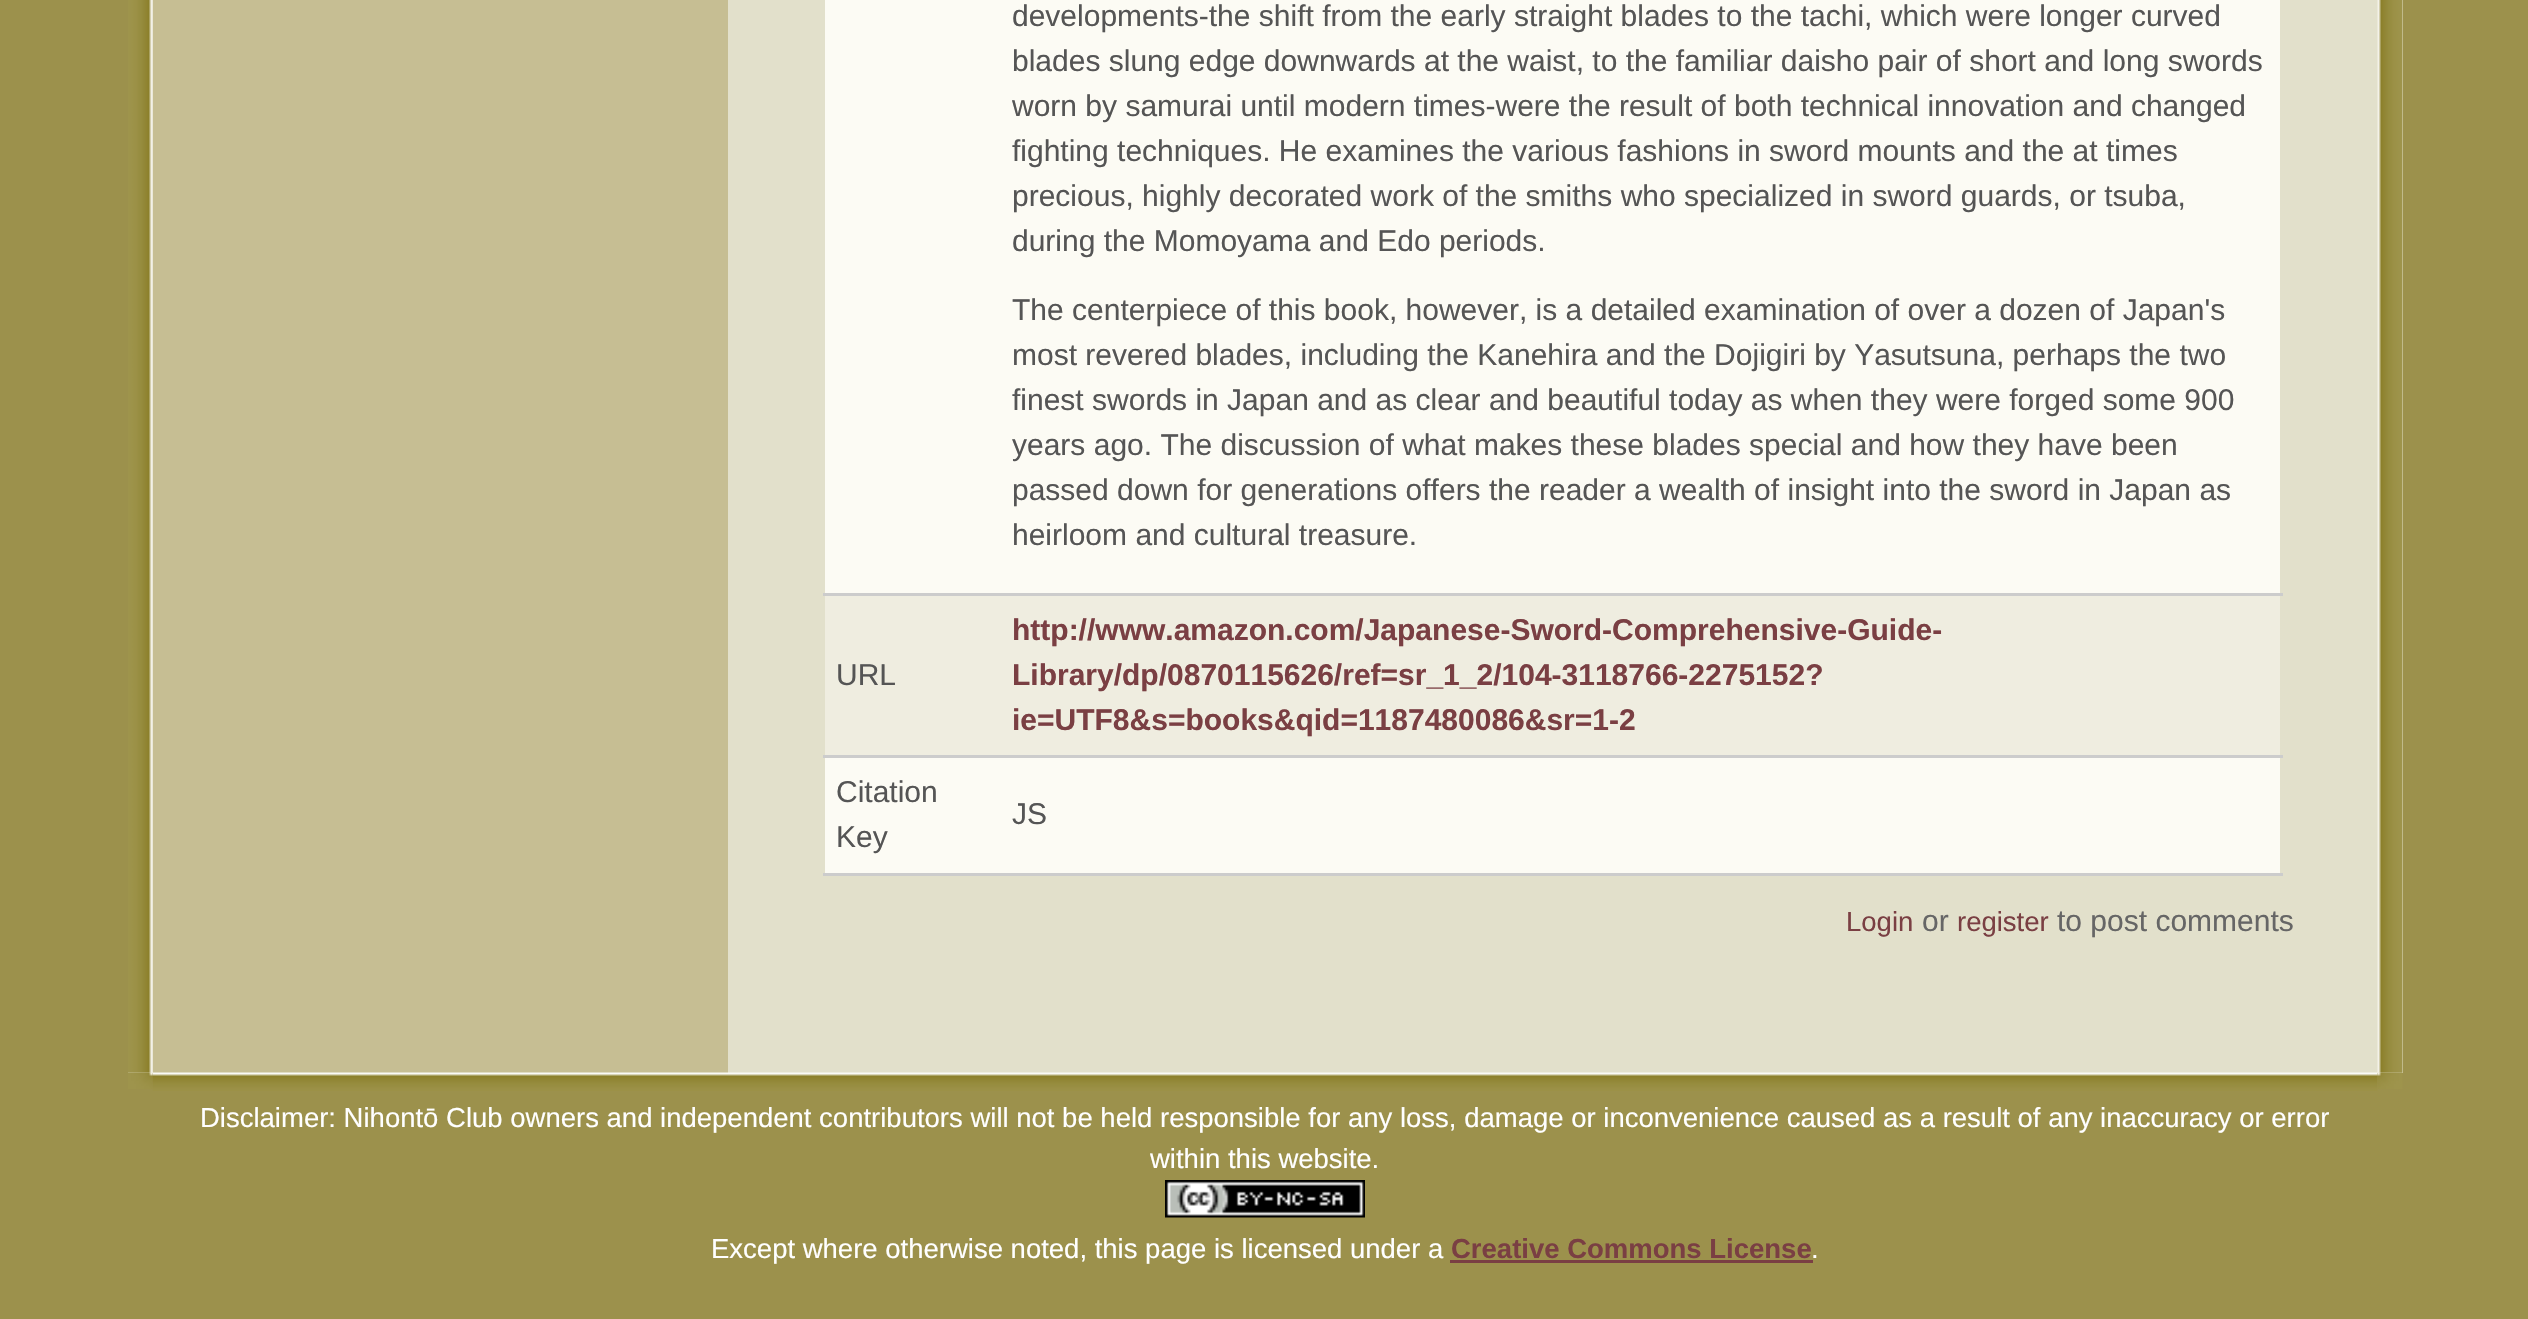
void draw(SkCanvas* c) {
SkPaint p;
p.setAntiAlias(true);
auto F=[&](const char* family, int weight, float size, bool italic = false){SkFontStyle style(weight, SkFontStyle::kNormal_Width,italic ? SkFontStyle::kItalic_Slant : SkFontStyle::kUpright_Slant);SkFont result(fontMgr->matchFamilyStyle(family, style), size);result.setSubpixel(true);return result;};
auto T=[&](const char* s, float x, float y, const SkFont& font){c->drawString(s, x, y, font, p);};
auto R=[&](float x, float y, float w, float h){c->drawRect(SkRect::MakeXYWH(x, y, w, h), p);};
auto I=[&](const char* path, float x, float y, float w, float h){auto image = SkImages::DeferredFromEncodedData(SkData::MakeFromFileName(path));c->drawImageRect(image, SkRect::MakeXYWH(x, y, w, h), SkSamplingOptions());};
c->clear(0xff9c914c);
p.setColor(0xffe2e0cb);
R(128,0,2275,1073);
I("1.png",128,0,25,1073);
p.setColor(0xffc6be93);
R(153,0,575,1073);
p.setColor(0xfffcfbf4);
R(825,0,1455,593);
p.setColor(0xffcccccc);
R(823,593,1460,3);
auto f1 = F("Liberation Sans",400,30);
p.setColor(0xff555555);
T("developments-the shift from the early straight blades to the tachi, which were longer curved",1012,26,f1);
T("blades slung edge downwards at the waist, to the familiar daisho pair of short and long swords",1012,71,f1);
T("worn by samurai until modern times-were the result of both technical innovation and changed",1012,116,f1);
T("fighting techniques. He examines the various fashions in sword mounts and the at times",1012,161,f1);
T("precious, highly decorated work of the smiths who specialized in sword guards, or tsuba,",1012,206,f1);
T("during the Momoyama and Edo periods.",1012,251,f1);
T("The centerpiece of this book, however, is a detailed examination of over a dozen of Japan's",1012,320,f1);
T("most revered blades, including the Kanehira and the Dojigiri by Yasutsuna, perhaps the two",1012,365,f1);
T("finest swords in Japan and as clear and beautiful today as when they were forged some 900",1012,410,f1);
T("years ago. The discussion of what makes these blades special and how they have been",1012,455,f1);
T("passed down for generations offers the reader a wealth of insight into the sword in Japan as",1012,500,f1);
T("heirloom and cultural treasure.",1012,545,f1);
p.setColor(0xffefede0);
R(825,596,1455,159);
p.setColor(0xffcccccc);
R(823,755,1460,3);
p.setColor(0xff555555);
T("URL",836,685,f1);
auto f2 = F("Liberation Sans",700,30);
p.setColor(0xff7a3f43);
T("http://www.amazon.com/Japanese-Sword-Comprehensive-Guide-",1012,640,f2);
T("Library/dp/0870115626/ref=sr_1_2/104-3118766-2275152?",1012,685,f2);
T("ie=UTF8&s=books&qid=1187480086&sr=1-2",1012,730,f2);
p.setColor(0xfffcfbf4);
R(825,758,1455,115);
p.setColor(0xffcccccc);
R(823,873,1460,3);
p.setColor(0xff555555);
T("Citation",836,802,f1);
T("Key",836,847,f1);
T("JS",1012,824,f1);
auto f3 = F("Liberation Sans",400,27.5);
p.setColor(0xff7a3f43);
T("Login",1846,931,f3);
p.setColor(0xff666666);
T("or",1922,931,f1);
p.setColor(0xff7a3f43);
T("register",1957,931,f3);
p.setColor(0xff666666);
T("to post comments",2057,931,f1);
I("2.png",2377,0,26,1073);
I("3.png",128,1072,25,17);
I("5.png",152,1072,2226,19);
I("4.png",2377,1072,26,17);
p.setColor(0xffffffff);
T("Disclaimer: Nihontō Club owners and independent contributors will not be held responsible for any loss, damage or inconvenience caused as a result of any inaccuracy or error",200,1127,f3);
T("within this website.",1150,1168,f3);
I("6.png",1165,1180,200,38);
T("Except where otherwise noted, this page is licensed under a",711,1258,f3);
auto f4 = F("Liberation Sans",700,27.5);
p.setColor(0xff7a3f43);
T("Creative Commons License",1451,1258,f4);
R(1450,1260,363,3);
p.setColor(0xffffffff);
T(".",1811,1258,f3);
}
